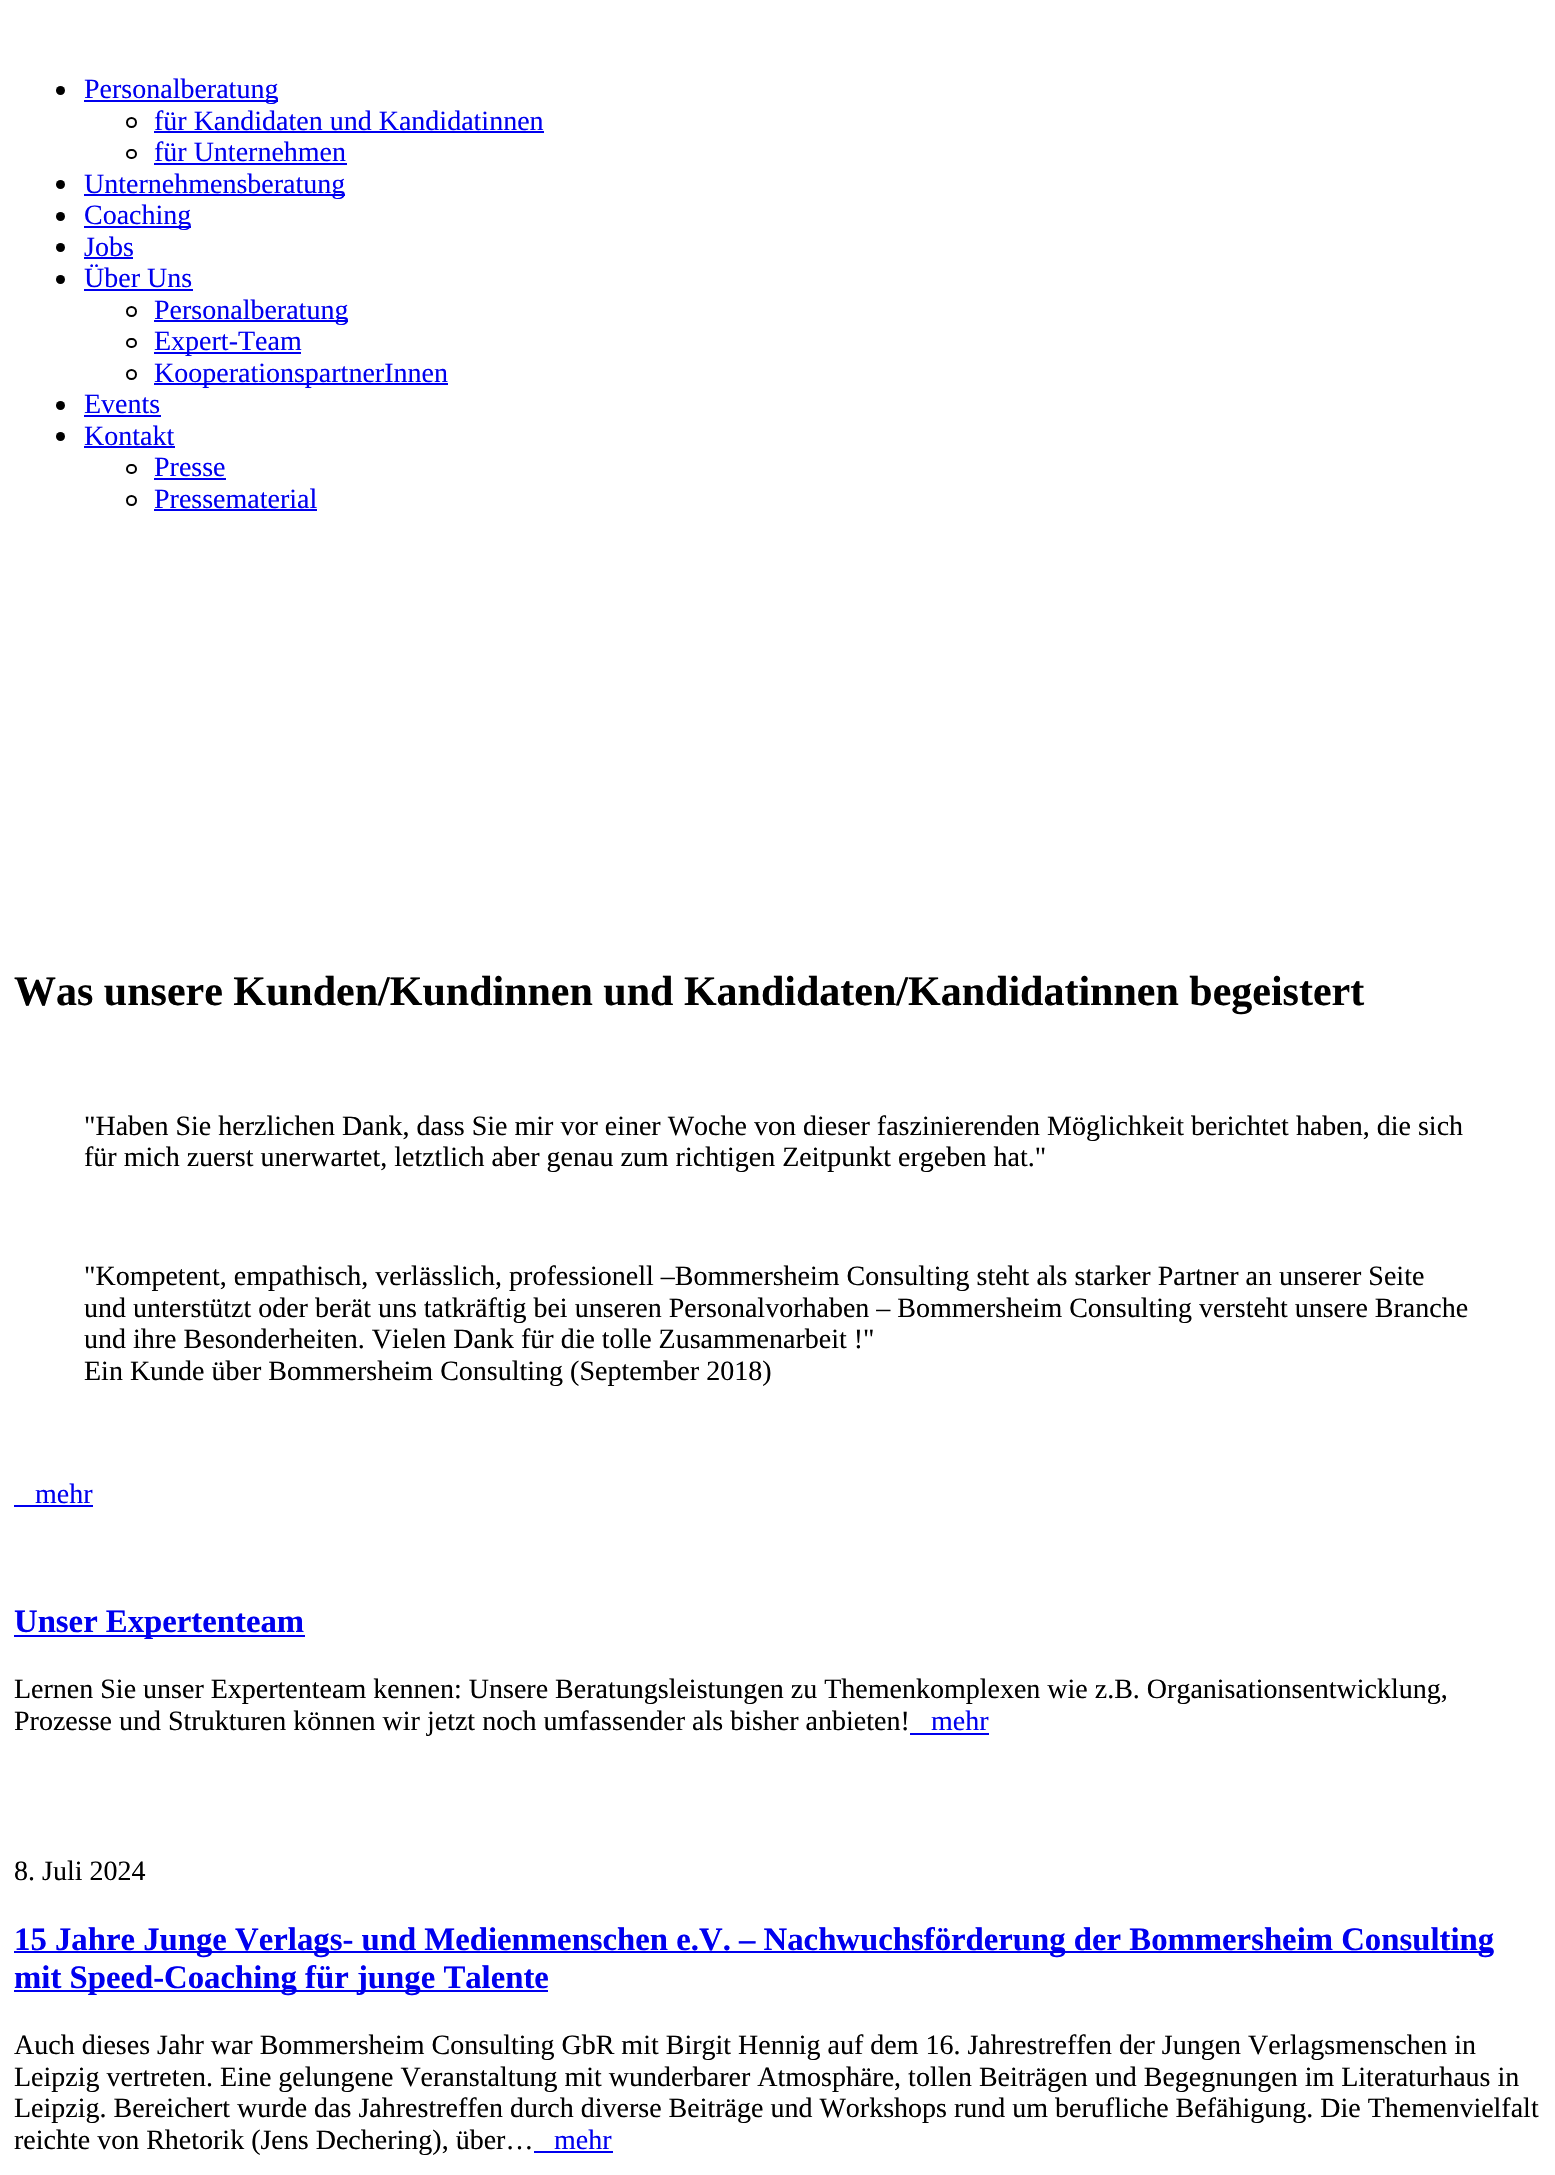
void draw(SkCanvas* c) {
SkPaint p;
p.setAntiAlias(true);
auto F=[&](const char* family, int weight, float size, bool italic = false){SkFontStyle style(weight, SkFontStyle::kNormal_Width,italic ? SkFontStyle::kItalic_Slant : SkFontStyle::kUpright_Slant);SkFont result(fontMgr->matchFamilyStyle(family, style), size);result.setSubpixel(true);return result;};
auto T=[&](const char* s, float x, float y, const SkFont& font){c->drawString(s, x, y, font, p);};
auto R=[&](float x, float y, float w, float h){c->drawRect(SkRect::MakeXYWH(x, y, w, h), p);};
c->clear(0xffffffff);
p.setColor(0xff000000);
c->drawCircle(60.5,90.5,4.5,p);
p.setColor(0xff0000ee);
R(84,100,194,2);
auto f1 = F("Liberation Serif",400,28);
T("Personalberatung",84,98,f1);
p.setStroke(true);
p.setStrokeWidth(2);
p.setColor(0xff000000);
c->drawCircle(131.5,122.5,4.5,p);
p.setStroke(false);
p.setColor(0xff0000ee);
T("für Kandidaten und Kandidatinnen",154,130,f1);
R(154,131,390,2);
p.setStroke(true);
p.setColor(0xff000000);
c->drawRoundRect(SkRect::MakeXYWH(127,150,9,8),4,4,p);
p.setStroke(false);
p.setColor(0xff0000ee);
T("für Unternehmen",154,161,f1);
R(154,163,193,2);
p.setColor(0xff000000);
c->drawCircle(60.5,184.5,4.5,p);
p.setColor(0xff0000ee);
R(84,194,261,2);
T("Unternehmensberatung",84,193,f1);
p.setColor(0xff000000);
c->drawCircle(60.5,216.5,4.5,p);
p.setColor(0xff0000ee);
R(84,226,107,2);
T("Coaching",84,224,f1);
p.setColor(0xff000000);
c->drawCircle(60.5,247.5,4.5,p);
p.setColor(0xff0000ee);
T("Jobs",84,256,f1);
R(84,257,49,2);
p.setColor(0xff000000);
c->drawCircle(60.5,279.5,4.5,p);
p.setColor(0xff0000ee);
T("Über Uns",84,287,f1);
R(84,289,109,2);
p.setStroke(true);
p.setColor(0xff000000);
c->drawCircle(131.5,311.5,4.5,p);
p.setStroke(false);
p.setColor(0xff0000ee);
R(154,320,194,2);
T("Personalberatung",154,319,f1);
p.setStroke(true);
p.setColor(0xff000000);
c->drawRoundRect(SkRect::MakeXYWH(127,339,9,8),4,4,p);
p.setStroke(false);
p.setColor(0xff0000ee);
R(154,352,147,2);
T("Expert-Team",154,350,f1);
p.setStroke(true);
p.setColor(0xff000000);
c->drawCircle(131.5,374.5,4.5,p);
p.setStroke(false);
p.setColor(0xff0000ee);
R(154,383,294,2);
T("KooperationspartnerInnen",154,382,f1);
p.setColor(0xff000000);
c->drawCircle(60.5,405.5,4.5,p);
p.setColor(0xff0000ee);
T("Events",84,413,f1);
R(84,415,77,2);
p.setColor(0xff000000);
c->drawCircle(60.5,436.5,4.5,p);
p.setColor(0xff0000ee);
T("Kontakt",84,445,f1);
R(84,446,91,2);
p.setStroke(true);
p.setColor(0xff000000);
c->drawRoundRect(SkRect::MakeXYWH(127,465,9,8),4,4,p);
p.setStroke(false);
p.setColor(0xff0000ee);
T("Presse",154,476,f1);
R(154,478,72,2);
p.setStroke(true);
p.setColor(0xff000000);
c->drawCircle(131.5,500.5,4.5,p);
p.setStroke(false);
p.setColor(0xff0000ee);
T("Pressematerial",154,508,f1);
R(154,509,163,2);
auto f2 = F("Liberation Serif",700,42);
p.setColor(0xff000000);
T("Was unsere Kunden/Kundinnen und Kandidaten/Kandidatinnen begeistert",14,1005,f2);
T("\"Haben Sie herzlichen Dank, dass Sie mir vor einer Woche von dieser faszinierenden Möglichkeit berichtet haben, die sich",84,1135,f1);
T("für mich zuerst unerwartet, letztlich aber genau zum richtigen Zeitpunkt ergeben hat.\"",84,1166,f1);
T("\"Kompetent, empathisch, verlässlich, professionell –Bommersheim Consulting steht als starker Partner an unserer Seite",84,1285,f1);
T("und unterstützt oder berät uns tatkräftig bei unseren Personalvorhaben – Bommersheim Consulting versteht unsere Branche",84,1317,f1);
T("und ihre Besonderheiten. Vielen Dank für die tolle Zusammenarbeit !\"",84,1348,f1);
T("Ein Kunde über Bommersheim Consulting (September 2018)",84,1380,f1);
p.setColor(0xff0000ee);
T("mehr",35,1503,f1);
R(14,1505,79,2);
R(14,1635,291,2);
auto f3 = F("Liberation Serif",700,32.75);
T("Unser Expertenteam",14,1632,f3);
p.setColor(0xff000000);
T("Lernen Sie unser Expertenteam kennen: Unsere Beratungsleistungen zu Themenkomplexen wie z.B. Organisationsentwicklung,",14,1698,f1);
T("Prozesse und Strukturen können wir jetzt noch umfassender als bisher anbieten!",14,1730,f1);
p.setColor(0xff0000ee);
T("mehr",931,1730,f1);
R(910,1733,79,2);
p.setColor(0xff000000);
T("8. Juli 2024",14,1880,f1);
p.setColor(0xff0000ee);
R(14,1951,1479,2);
T("15 Jahre Junge Verlags- und Medienmenschen e.V. – Nachwuchsförderung der Bommersheim Consulting",14,1950,f3);
R(14,1990,534,2);
T("mit Speed-Coaching für junge Talente",14,1988,f3);
p.setColor(0xff000000);
T("Auch dieses Jahr war Bommersheim Consulting GbR mit Birgit Hennig auf dem 16. Jahrestreffen der Jungen Verlagsmenschen in",14,2054,f1);
T("Leipzig vertreten. Eine gelungene Veranstaltung mit wunderbarer Atmosphäre, tollen Beiträgen und Begegnungen im Literaturhaus in",14,2086,f1);
T("Leipzig. Bereichert wurde das Jahrestreffen durch diverse Beiträge und Workshops rund um berufliche Befähigung. Die Themenvielfalt",14,2117,f1);
T("reichte von Rhetorik (Jens Dechering), über…",14,2149,f1);
p.setColor(0xff0000ee);
T("mehr",554,2149,f1);
R(534,2151,79,2);
}
